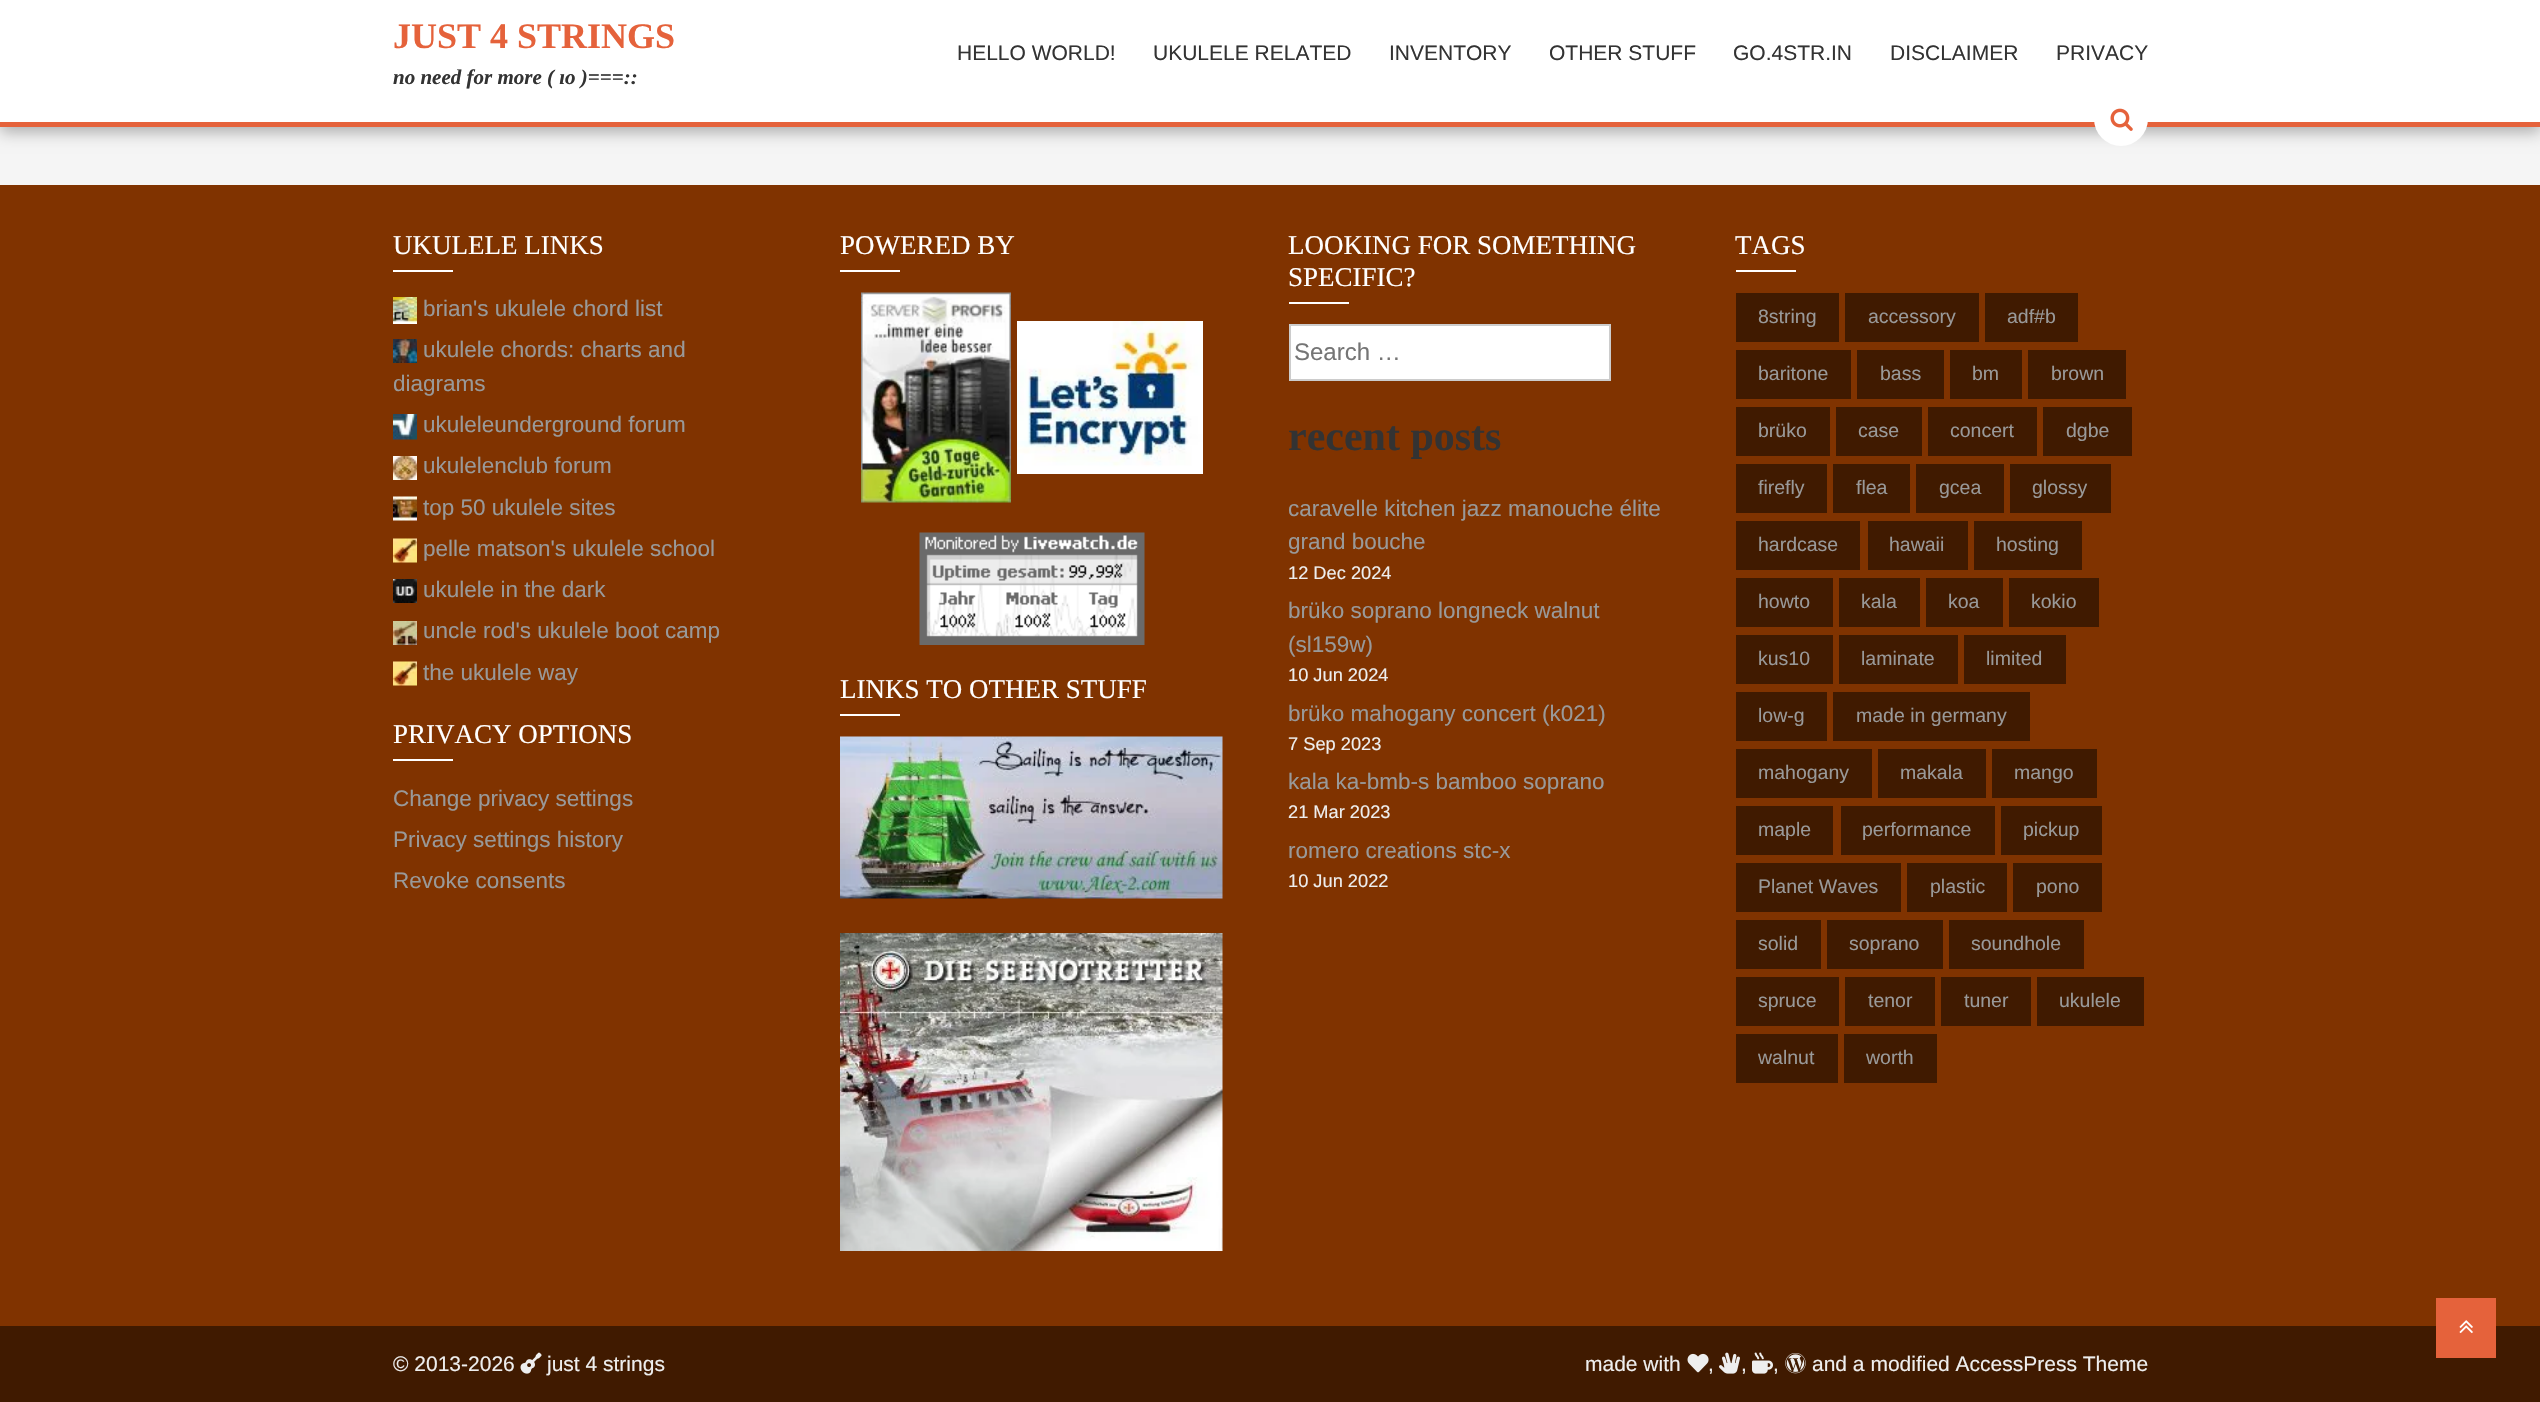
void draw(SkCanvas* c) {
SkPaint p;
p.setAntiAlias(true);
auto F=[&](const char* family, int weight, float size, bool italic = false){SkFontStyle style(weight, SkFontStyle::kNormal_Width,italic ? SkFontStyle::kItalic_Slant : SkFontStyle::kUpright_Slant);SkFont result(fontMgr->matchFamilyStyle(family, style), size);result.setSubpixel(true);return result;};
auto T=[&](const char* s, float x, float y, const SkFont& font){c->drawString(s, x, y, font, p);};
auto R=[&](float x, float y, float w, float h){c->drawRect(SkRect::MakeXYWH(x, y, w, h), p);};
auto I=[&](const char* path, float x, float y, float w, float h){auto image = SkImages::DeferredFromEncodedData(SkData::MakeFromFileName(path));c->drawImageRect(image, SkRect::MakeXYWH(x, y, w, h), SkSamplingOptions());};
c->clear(0xfff5f5f5);
p.setColor(0x4d000000);
p.setMaskFilter(SkMaskFilter::MakeBlur(kNormal_SkBlurStyle, 7.5));
c->drawRect(SkRect::MakeXYWH(0,6,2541,126),p);
p.setMaskFilter(nullptr);
p.setColor(0xffffffff);
R(0,0,2540,122);
p.setColor(0xffe5623b);
R(0,122,2540,5);
auto f1 = F("Liberation Serif",700,36);
T("JUST 4 STRINGS",393,48,f1);
auto f2 = F("Liberation Serif",700,21,true);
p.setColor(0xff333333);
T("no need for more ( ıo )===::",393,84,f2);
auto f3 = F("Liberation Sans",400,21);
T("HELLO WORLD!",957,60,f3);
T("UKULELE RELATED",1153,60,f3);
T("INVENTORY",1389,60,f3);
T("OTHER STUFF",1549,60,f3);
T("GO.4STR.IN",1733,60,f3);
T("DISCLAIMER",1890,60,f3);
T("PRIVACY",2056,60,f3);
p.setColor(0xffffffff);
c->drawCircle(2121,119,27,p);
I("1.png",2110,108,23,23);
p.setColor(0xff803300);
R(0,185,2540,1141);
auto f4 = F("Liberation Serif",400,27);
p.setColor(0xffffffff);
T("UKULELE LINKS",393,254,f4);
R(393,270,60,2);
I("2.png",393,297,24,27);
auto f5 = F("Liberation Sans",400,22.5);
p.setColor(0xff999999);
T("brian's ukulele chord list",423,316,f5);
I("3.png",393,339,24,24);
T("ukulele chords: charts and",423,357,f5);
T("diagrams",393,391,f5);
I("4.png",393,414,24,26);
T("ukuleleunderground forum",423,432,f5);
I("5.png",393,456,24,24);
T("ukulelenclub forum",423,473,f5);
I("6.png",393,496,24,25);
T("top 50 ukulele sites",423,515,f5);
I("7.png",393,538,24,25);
T("pelle matson's ukulele school",423,556,f5);
I("8.png",393,579,24,24);
T("ukulele in the dark",423,597,f5);
I("9.png",393,621,24,24);
T("uncle rod's ukulele boot camp",423,638,f5);
I("7.png",393,661,24,25);
T("the ukulele way",423,680,f5);
p.setColor(0xffffffff);
T("PRIVACY OPTIONS",393,743,f4);
R(393,759,60,2);
p.setColor(0xff999999);
T("Change privacy settings",393,806,f5);
T("Privacy settings history",393,847,f5);
T("Revoke consents",393,888,f5);
p.setColor(0xffffffff);
T("POWERED BY",840,254,f4);
R(840,270,60,2);
I("10.png",861,292,150,211);
I("11.png",1017,321,186,153);
I("12.png",919,532,226,113);
T("LINKS TO OTHER STUFF",840,698,f4);
R(840,714,60,2);
I("13.png",840,736,383,163);
I("14.png",840,933,383,318);
T("LOOKING FOR SOMETHING",1288,254,f4);
T("SPECIFIC?",1288,286,f4);
R(1289,302,60,2);
c->drawRect(SkRect::MakeXYWH(1290,325,320,55),p);
p.setStroke(true);
p.setStrokeWidth(2);
p.setColor(0xffcccccc);
c->drawRect(SkRect::MakeXYWH(1290,325,320,55),p);
auto f6 = F("Liberation Sans",400,24);
p.setStroke(false);
p.setColor(0xff757575);
T("Search …",1294,360,f6);
auto f7 = F("Liberation Serif",700,42);
p.setColor(0xff333333);
T("recent posts",1288,450,f7);
p.setColor(0xff999999);
T("caravelle kitchen jazz manouche élite",1288,516,f5);
T("grand bouche",1288,549,f5);
auto f8 = F("Liberation Sans",400,18.25);
p.setColor(0xffeeeeee);
T("12 Dec 2024",1288,579,f8);
p.setColor(0xff999999);
T("brüko soprano longneck walnut",1288,618,f5);
T("(sl159w)",1288,652,f5);
p.setColor(0xffeeeeee);
T("10 Jun 2024",1288,681,f8);
p.setColor(0xff999999);
T("brüko mahogany concert (k021)",1288,721,f5);
p.setColor(0xffeeeeee);
T("7 Sep 2023",1288,750,f8);
p.setColor(0xff999999);
T("kala ka-bmb-s bamboo soprano",1288,789,f5);
p.setColor(0xffeeeeee);
T("21 Mar 2023",1288,818,f8);
p.setColor(0xff999999);
T("romero creations stc-x",1288,858,f5);
p.setColor(0xffeeeeee);
T("10 Jun 2022",1288,887,f8);
p.setColor(0xffffffff);
T("TAGS",1735,254,f4);
R(1736,270,60,2);
p.setColor(0xff401a00);
R(1736,293,103,49);
auto f9 = F("Liberation Sans",400,19.5);
p.setColor(0xff999999);
T("8string",1758,323,f9);
p.setColor(0xff401a00);
R(1845,293,134,49);
p.setColor(0xff999999);
T("accessory",1868,323,f9);
p.setColor(0xff401a00);
R(1985,293,93,49);
p.setColor(0xff999999);
T("adf#b",2007,323,f9);
p.setColor(0xff401a00);
R(1736,350,115,49);
p.setColor(0xff999999);
T("baritone",1758,380,f9);
p.setColor(0xff401a00);
R(1857,350,87,49);
p.setColor(0xff999999);
T("bass",1880,380,f9);
p.setColor(0xff401a00);
R(1950,350,72,49);
p.setColor(0xff999999);
T("bm",1972,380,f9);
p.setColor(0xff401a00);
R(2028,350,98,49);
p.setColor(0xff999999);
T("brown",2051,380,f9);
p.setColor(0xff401a00);
R(1736,407,94,49);
p.setColor(0xff999999);
T("brüko",1758,437,f9);
p.setColor(0xff401a00);
R(1836,407,86,49);
p.setColor(0xff999999);
T("case",1858,437,f9);
p.setColor(0xff401a00);
R(1928,407,109,49);
p.setColor(0xff999999);
T("concert",1950,437,f9);
p.setColor(0xff401a00);
R(2043,407,89,49);
p.setColor(0xff999999);
T("dgbe",2066,437,f9);
p.setColor(0xff401a00);
R(1736,464,91,49);
p.setColor(0xff999999);
T("firefly",1758,494,f9);
p.setColor(0xff401a00);
R(1833,464,77,49);
p.setColor(0xff999999);
T("flea",1856,494,f9);
p.setColor(0xff401a00);
R(1916,464,88,49);
p.setColor(0xff999999);
T("gcea",1939,494,f9);
p.setColor(0xff401a00);
R(2010,464,101,49);
p.setColor(0xff999999);
T("glossy",2032,494,f9);
p.setColor(0xff401a00);
R(1736,521,124,49);
p.setColor(0xff999999);
T("hardcase",1758,551,f9);
p.setColor(0xff401a00);
R(1868,521,100,49);
p.setColor(0xff999999);
T("hawaii",1889,551,f9);
p.setColor(0xff401a00);
R(1974,521,108,49);
p.setColor(0xff999999);
T("hosting",1996,551,f9);
p.setColor(0xff401a00);
R(1736,578,97,49);
p.setColor(0xff999999);
T("howto",1758,608,f9);
p.setColor(0xff401a00);
R(1839,578,81,49);
p.setColor(0xff999999);
T("kala",1861,608,f9);
p.setColor(0xff401a00);
R(1926,578,77,49);
p.setColor(0xff999999);
T("koa",1948,608,f9);
p.setColor(0xff401a00);
R(2009,578,90,49);
p.setColor(0xff999999);
T("kokio",2031,608,f9);
p.setColor(0xff401a00);
R(1736,635,97,49);
p.setColor(0xff999999);
T("kus10",1758,665,f9);
p.setColor(0xff401a00);
R(1839,635,119,49);
p.setColor(0xff999999);
T("laminate",1861,665,f9);
p.setColor(0xff401a00);
R(1964,635,102,49);
p.setColor(0xff999999);
T("limited",1986,665,f9);
p.setColor(0xff401a00);
R(1736,692,91,49);
p.setColor(0xff999999);
T("low-g",1758,722,f9);
p.setColor(0xff401a00);
R(1833,692,197,49);
p.setColor(0xff999999);
T("made in germany",1856,722,f9);
p.setColor(0xff401a00);
R(1736,749,136,49);
p.setColor(0xff999999);
T("mahogany",1758,779,f9);
p.setColor(0xff401a00);
R(1878,749,108,49);
p.setColor(0xff999999);
T("makala",1900,779,f9);
p.setColor(0xff401a00);
R(1992,749,105,49);
p.setColor(0xff999999);
T("mango",2014,779,f9);
p.setColor(0xff401a00);
R(1736,806,97,49);
p.setColor(0xff999999);
T("maple",1758,836,f9);
p.setColor(0xff401a00);
R(1841,806,154,49);
p.setColor(0xff999999);
T("performance",1862,836,f9);
p.setColor(0xff401a00);
R(2001,806,101,49);
p.setColor(0xff999999);
T("pickup",2023,836,f9);
p.setColor(0xff401a00);
R(1736,863,165,49);
p.setColor(0xff999999);
T("Planet Waves",1758,893,f9);
p.setColor(0xff401a00);
R(1907,863,100,49);
p.setColor(0xff999999);
T("plastic",1930,893,f9);
p.setColor(0xff401a00);
R(2013,863,89,49);
p.setColor(0xff999999);
T("pono",2036,893,f9);
p.setColor(0xff401a00);
R(1736,920,85,49);
p.setColor(0xff999999);
T("solid",1758,950,f9);
p.setColor(0xff401a00);
R(1827,920,116,49);
p.setColor(0xff999999);
T("soprano",1849,950,f9);
p.setColor(0xff401a00);
R(1949,920,135,49);
p.setColor(0xff999999);
T("soundhole",1971,950,f9);
p.setColor(0xff401a00);
R(1736,977,103,49);
p.setColor(0xff999999);
T("spruce",1758,1007,f9);
p.setColor(0xff401a00);
R(1845,977,90,49);
p.setColor(0xff999999);
T("tenor",1868,1007,f9);
p.setColor(0xff401a00);
R(1941,977,90,49);
p.setColor(0xff999999);
T("tuner",1964,1007,f9);
p.setColor(0xff401a00);
R(2037,977,107,49);
p.setColor(0xff999999);
T("ukulele",2059,1007,f9);
p.setColor(0xff401a00);
R(1736,1034,102,49);
p.setColor(0xff999999);
T("walnut",1758,1064,f9);
p.setColor(0xff401a00);
R(1844,1034,93,49);
p.setColor(0xff999999);
T("worth",1866,1064,f9);
p.setColor(0xff401a00);
R(0,1326,2540,76);
p.setColor(0xffeeeeee);
T("© 2013-2026",393,1371,f3);
I("15.png",520,1352,22,22);
T("just 4 strings",547,1371,f3);
T("made with",1585,1371,f3);
I("16.png",1687,1353,22,20);
T(",",1708,1371,f3);
I("17.png",1719,1352,21,22);
T(",",1741,1371,f3);
I("18.png",1752,1352,21,22);
T(",",1773,1371,f3);
I("19.png",1785,1353,21,21);
T("and a modified AccessPress Theme",1812,1371,f3);
p.setColor(0xffe5623b);
R(2436,1298,60,60);
I("20.png",2459,1320,14,14);
}
